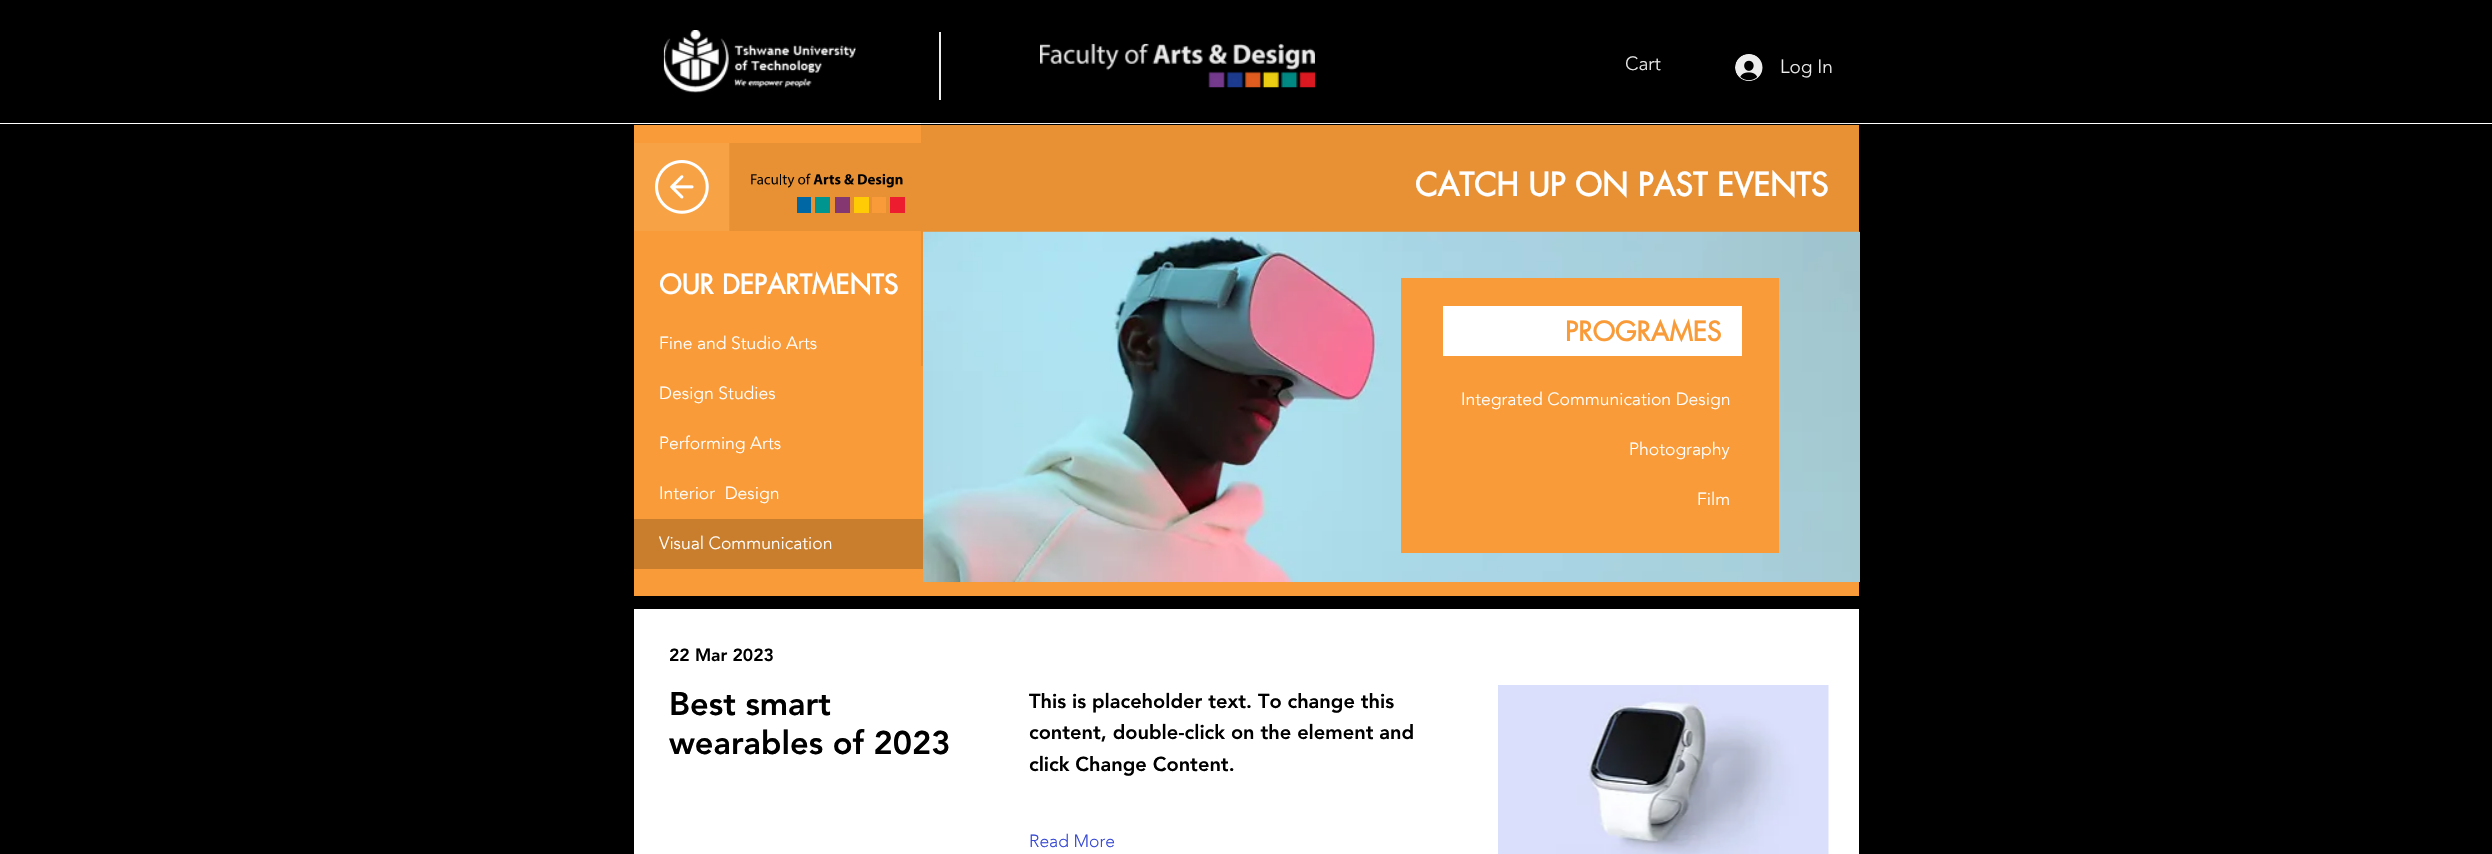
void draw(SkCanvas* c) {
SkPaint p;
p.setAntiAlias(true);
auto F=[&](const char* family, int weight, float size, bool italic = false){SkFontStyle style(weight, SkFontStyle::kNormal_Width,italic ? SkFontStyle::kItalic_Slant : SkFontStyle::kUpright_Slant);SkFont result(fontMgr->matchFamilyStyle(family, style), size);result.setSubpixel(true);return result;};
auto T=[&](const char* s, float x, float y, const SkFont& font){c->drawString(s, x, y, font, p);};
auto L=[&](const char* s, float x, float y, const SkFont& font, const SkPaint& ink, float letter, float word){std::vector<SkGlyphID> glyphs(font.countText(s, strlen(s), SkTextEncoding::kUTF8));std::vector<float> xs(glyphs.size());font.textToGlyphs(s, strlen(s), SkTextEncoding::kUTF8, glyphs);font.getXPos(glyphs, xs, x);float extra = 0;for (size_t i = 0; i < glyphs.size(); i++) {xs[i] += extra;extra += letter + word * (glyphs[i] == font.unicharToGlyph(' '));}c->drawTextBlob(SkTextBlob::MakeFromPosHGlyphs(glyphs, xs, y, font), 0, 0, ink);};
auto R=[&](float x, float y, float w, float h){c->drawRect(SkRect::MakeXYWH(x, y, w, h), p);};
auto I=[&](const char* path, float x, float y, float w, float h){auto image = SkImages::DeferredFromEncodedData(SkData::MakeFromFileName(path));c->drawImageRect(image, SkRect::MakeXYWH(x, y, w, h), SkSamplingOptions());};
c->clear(0xffffffff);
p.setColor(0xffededed);
R(921,123,939,1);
p.setColor(0xff000000);
R(0,0,2492,123);
I("1.png",663,30,193,63);
p.setColor(0xffededed);
R(939,32,2,68);
I("2.png",1040,43,275,45);
auto f1 = F("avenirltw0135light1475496",300,19);
T("Cart",1625,70,f1);
I("3.png",1735,54,28,27);
T("Log In",1780,73,f1);
p.setColor(0xff000000);
R(0,124,2492,730);
p.setColor(0xfff89b38);
R(634,125,1225,471);
p.setColor(0xffe79034);
R(921,125,938,241);
R(730,143,191,88);
auto f2 = F("futura",700,31.25);
p.setColor(0xffffffff);
T("CATCH UP ON PAST EVENTS",1415,196,f2);
p.setColor(0xfff8a246);
R(634,143,95,88);
p.setColor(0xffe79741);
R(729,143,1,88);
I("4.png",655,160,54,54);
I("5.png",751,173,152,15);
p.setColor(0xff0067a5);
R(797,197,14,16);
p.setColor(0xff00958e);
R(815,197,15,16);
p.setColor(0xff853772);
R(835,197,15,16);
p.setColor(0xffffcb05);
R(854,197,15,16);
p.setColor(0xfff89b38);
R(872,197,14,16);
p.setColor(0xffed1c2e);
R(890,197,15,16);
auto f3 = F("futura",700,26.25);
p.setColor(0xffffffff);
T("OUR DEPARTMENTS",659,294,f3);
auto f4 = F("avenirltw0135light1475496",300,17.5);
T("Fine and Studio Arts",659,349,f4);
T("Design Studies",659,399,f4);
T("Performing Arts",659,449,f4);
L("Interior Design",659,499,f4,p,0,5);
p.setColor(0xffc97e2d);
R(634,519,289,50);
p.setColor(0xffffffff);
T("Visual Communication",659,549,f4);
I("6.png",923,231,937,352);
p.setColor(0xfff89b38);
R(1401,278,378,275);
p.setColor(0xffffffff);
R(1443,306,299,50);
p.setColor(0xfff89b38);
T("PROGRAMES",1565,341,f3);
p.setColor(0xffffffff);
T("Integrated Communication Design",1461,405,f4);
T("Photography",1629,455,f4);
T("Film",1697,505,f4);
R(634,609,1225,245);
auto f5 = F("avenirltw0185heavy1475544",900,17.5);
p.setColor(0xff000000);
T("22 Mar 2023",669,661,f5);
auto f6 = F("avenirltw0185heavy1475544",900,32.5);
T("Best smart",669,715,f6);
T("wearables of 2023",669,754,f6);
auto f7 = F("avenirltw0185heavy1475544",900,20);
T("This is placeholder text. To change this",1029,708,f7);
T("content, double-click on the element and",1029,739,f7);
T("click Change Content.",1029,771,f7);
I("7.png",1498,685,331,169);
p.setColor(0xff384ad3);
T("Read More",1029,847,f4);
}
